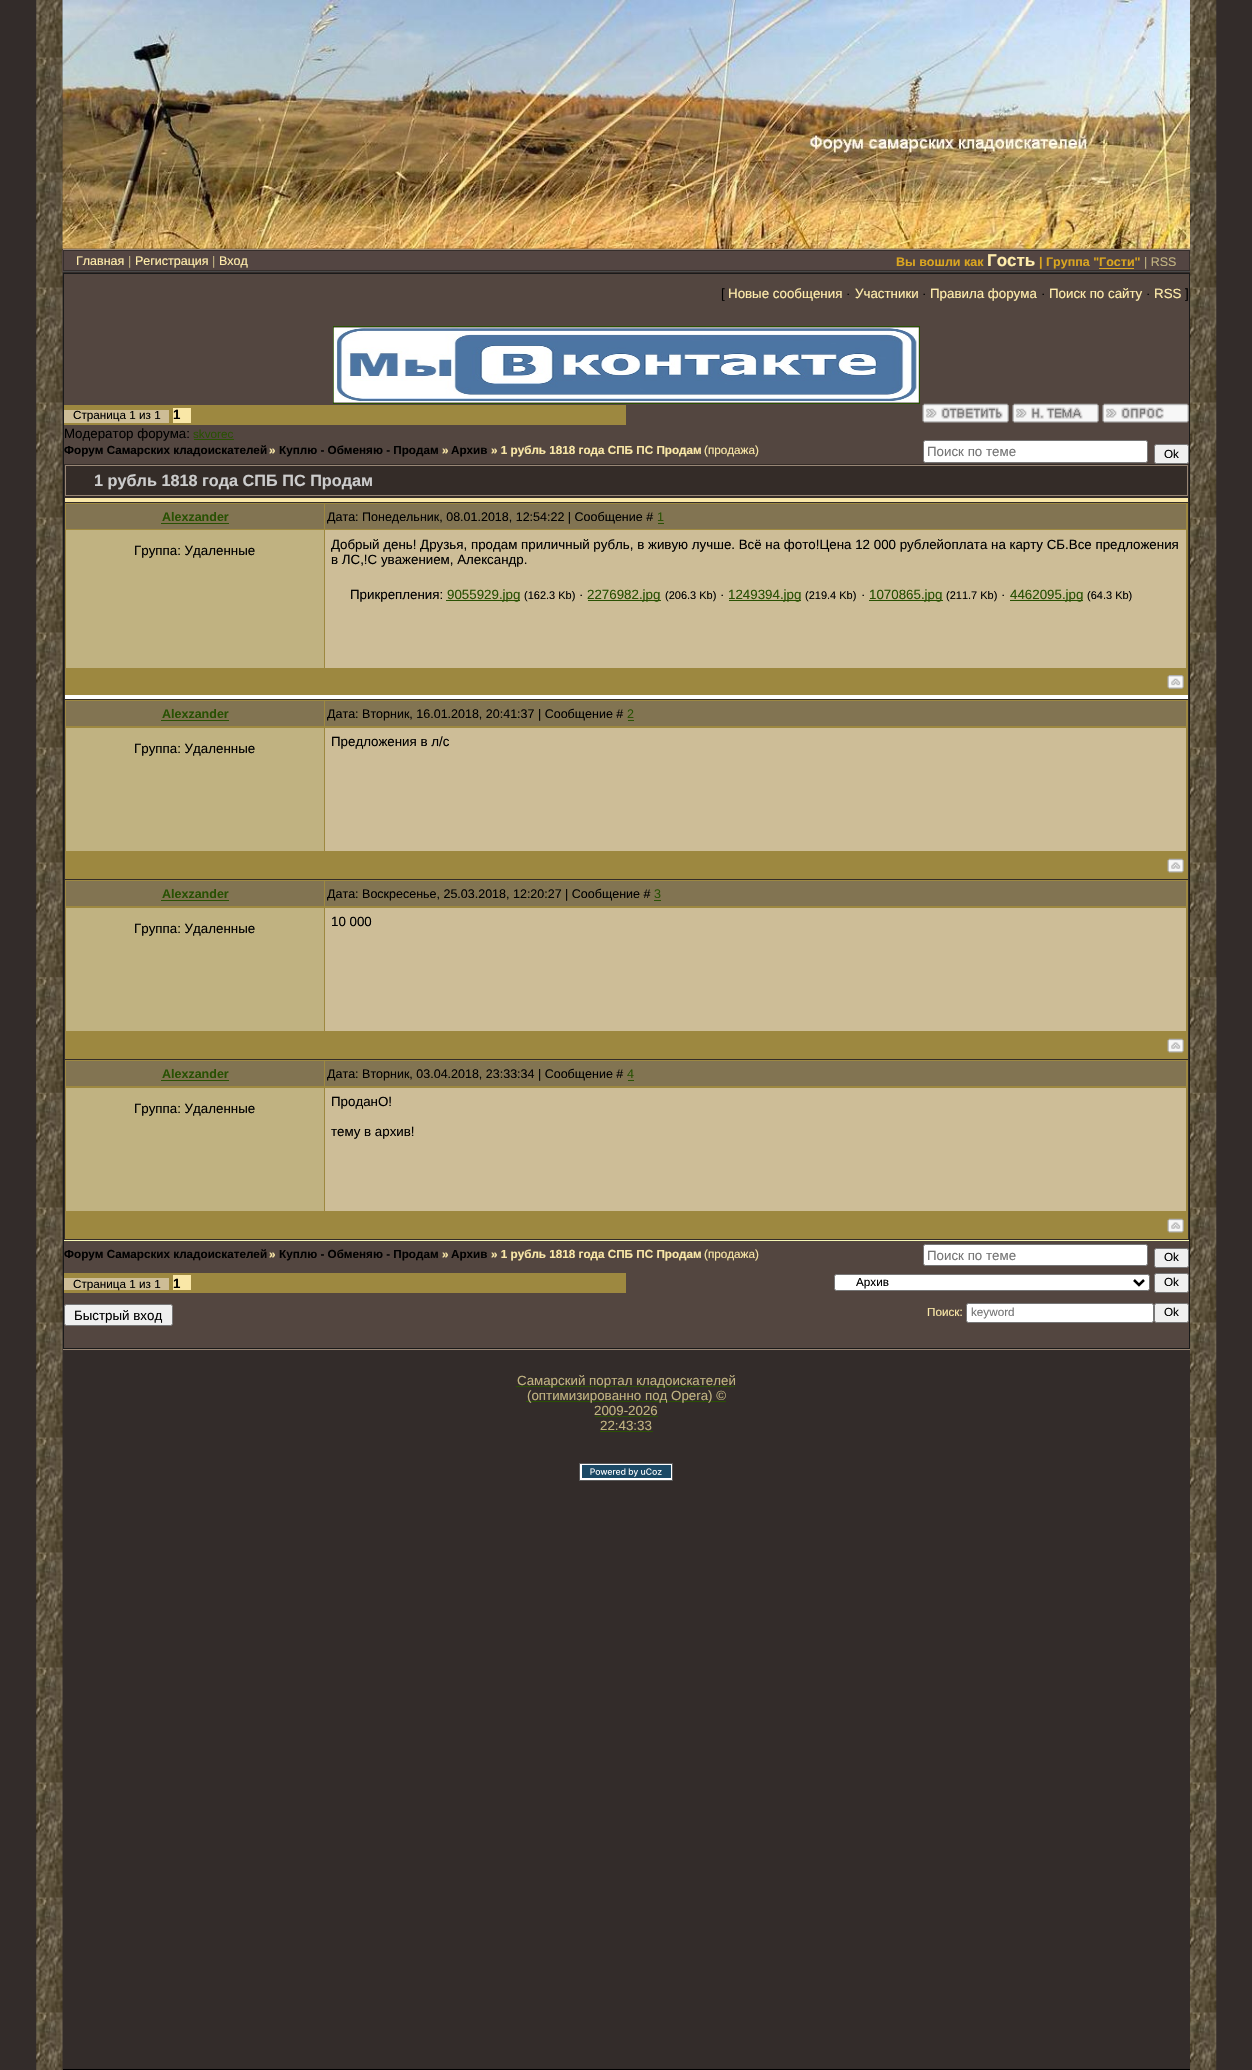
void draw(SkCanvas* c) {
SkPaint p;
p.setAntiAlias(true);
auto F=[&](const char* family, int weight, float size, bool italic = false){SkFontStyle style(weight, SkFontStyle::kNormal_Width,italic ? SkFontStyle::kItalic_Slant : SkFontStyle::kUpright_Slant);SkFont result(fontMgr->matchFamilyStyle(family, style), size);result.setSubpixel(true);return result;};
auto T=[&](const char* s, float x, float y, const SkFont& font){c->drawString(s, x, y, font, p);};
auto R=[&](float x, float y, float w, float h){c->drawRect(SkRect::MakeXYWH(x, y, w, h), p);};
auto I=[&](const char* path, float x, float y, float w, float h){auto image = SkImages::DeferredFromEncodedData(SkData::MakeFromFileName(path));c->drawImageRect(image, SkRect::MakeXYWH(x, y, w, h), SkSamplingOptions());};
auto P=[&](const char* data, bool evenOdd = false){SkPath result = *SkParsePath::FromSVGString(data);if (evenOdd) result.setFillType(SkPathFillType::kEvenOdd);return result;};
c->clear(0xff332c2a);
I("1.png",36,0,27,2070);
I("2.png",36,977,27,116);
p.setColor(0xff000000);
R(63,2069,1127,1);
p.setColor(0xff988675);
R(63,249,1127,1);
I("3.png",62,0,1128,249);
p.setColor(0xff534542);
R(62,250,1127,22);
p.setStroke(true);
p.setStrokeWidth(1);
p.setColor(0xff352e2c);
c->drawRect(SkRect::MakeXYWH(63.5,250.5,1126,20),p);
auto f1 = F("Liberation Sans",400,12.5);
p.setStroke(false);
p.setColor(0xffffecab);
T("Главная",76,265,f1);
p.setColor(0xffc0b281);
T("|",128,265,f1);
p.setColor(0xffffecab);
T("Регистрация",135,265,f1);
p.setColor(0xffc0b281);
T("|",212,265,f1);
p.setColor(0xffffecab);
T("Вход",219,265,f1);
auto f2 = F("Liberation Sans",700,12.5);
p.setColor(0xffdaa520);
T("Вы вошли как",896,266,f2);
auto f3 = F("Liberation Sans",700,17);
p.setColor(0xffffecab);
T("Гость",987,266,f3);
p.setColor(0xffdaa520);
T("| Группа \"Гости\"",1039,266,f2);
R(1099,268,35,1);
p.setColor(0xffc0b281);
T("| RSS",1144,266,f1);
p.setColor(0xff494949);
R(63,271,1127,1);
p.setColor(0xff988675);
R(63,1349,1127,1);
p.setColor(0xff534640);
c->drawRect(SkRect::MakeXYWH(63.5,273.5,1126,1075),p);
p.setStroke(true);
p.setColor(0xff1a1a1a);
c->drawRect(SkRect::MakeXYWH(63.5,273.5,1126,1075),p);
auto f4 = F("Liberation Sans",400,13.33);
p.setStroke(false);
p.setColor(0xff000000);
T("[",721,298,f4);
p.setColor(0xffffecab);
T("Новые сообщения",728,298,f4);
p.setColor(0xff000000);
T("·",846,298,f4);
p.setColor(0xffffecab);
T("Участники",855,298,f4);
p.setColor(0xff000000);
T("·",922,298,f4);
p.setColor(0xffffecab);
T("Правила форума",930,298,f4);
p.setColor(0xff000000);
T("·",1041,298,f4);
p.setColor(0xffffecab);
T("Поиск по сайту",1049,298,f4);
p.setColor(0xff000000);
T("·",1146,298,f4);
p.setColor(0xffffecab);
T("RSS",1154,298,f4);
p.setColor(0xff000000);
T("]",1185,298,f4);
p.setStroke(true);
p.setColor(0xff295103);
c->drawRect(SkRect::MakeXYWH(333.5,326.5,586,77),p);
I("4.png",333,327,586,76);
p.setStroke(false);
p.setColor(0xff9d8840);
R(64,405,562,20);
p.setColor(0xffcdbd97);
R(64,410,105,13);
auto f5 = F("Liberation Sans",400,11.7);
p.setColor(0xff000000);
T("Страница 1 из 1",73,419,f5);
p.setColor(0xfff9e7a7);
R(173,408,18,15);
auto f6 = F("Liberation Sans",700,13.33);
p.setColor(0xff000000);
T("1",173,419,f6);
I("5.png",922,403,87,20);
I("6.png",1012,403,87,20);
I("7.png",1102,403,87,20);
T("Модератор форума:",64,438,f4);
p.setColor(0xff295103);
T("skvorec",193,438,f5);
R(194,439,40,1);
auto f7 = F("Liberation Sans",700,11.7);
p.setColor(0xff000000);
T("Форум Самарских кладоискателей",64,454,f7);
p.setColor(0xfff9e7a7);
T("»",269,454,f7);
p.setColor(0xff000000);
T("Куплю - Обменяю - Продам",279,454,f7);
p.setColor(0xfff9e7a7);
T("»",442,454,f7);
p.setColor(0xff000000);
T("Архив",451,454,f7);
p.setColor(0xfff9e7a7);
T("» 1 рубль 1818 года СПБ ПС Продам",491,454,f7);
T("(продажа)",704,454,f5);
p.setColor(0xffffffff);
c->drawRoundRect(SkRect::MakeXYWH(923.5,440.5,224,22),2,2,p);
p.setStroke(true);
p.setColor(0xff767676);
c->drawRoundRect(SkRect::MakeXYWH(923.5,440.5,224,22),2,2,p);
p.setStroke(false);
p.setColor(0xff757575);
T("Поиск по теме",927,456,f4);
p.setColor(0xffefefef);
c->drawRoundRect(SkRect::MakeXYWH(1154.5,444.5,34,19),2,2,p);
p.setStroke(true);
p.setColor(0xff767676);
c->drawRoundRect(SkRect::MakeXYWH(1154.5,444.5,34,19),2,2,p);
p.setStroke(false);
p.setColor(0xff000000);
T("Ok",1164,458,f5);
p.setColor(0xff342c28);
R(64,464,1125,776);
p.setColor(0xfff7f8b7);
R(64,1240,1125,1);
p.setStroke(true);
p.setColor(0xff988675);
c->drawRect(SkRect::MakeXYWH(65.5,465.5,1122,30),p);
auto f8 = F("Liberation Sans",700,16.25);
p.setStroke(false);
p.setColor(0xffcccccc);
T("1 рубль 1818 года СПБ ПС Продам",94,486,f8);
p.setColor(0xfff9e7a7);
R(65,498,1123,4);
p.setColor(0xffffffff);
R(65,695,1123,4);
p.setColor(0xff9d8840);
R(65,503,1123,192);
p.setColor(0xff827452);
R(66,504,258,25);
p.setColor(0xff295103);
T("Alexzander",162,521,f2);
R(161,523,68,1);
p.setColor(0xff827452);
R(325,504,861,25);
p.setColor(0xff000000);
T("Дата: Понедельник, 08.01.2018, 12:54:22 | Сообщение #",327,521,f1);
p.setColor(0xff295103);
T("1",657,521,f1);
R(658,523,6,1);
p.setColor(0xffc0b281);
R(66,530,258,138);
p.setColor(0xff000000);
T("Группа: Удаленные",134,555,f4);
p.setColor(0xffcdbd97);
R(325,530,861,138);
p.setColor(0xff000000);
T("Добрый день! Друзья, продам приличный рубль, в живую лучше. Всё на фото!Цена 12 000 рублейоплата на карту СБ.Все предложения",331,549,f4);
T("в ЛС,!С уважением, Александр.",331,564,f4);
T("Прикрепления:",350,599,f4);
p.setColor(0xff295103);
R(446,600,74,1);
T("9055929.jpg",447,599,f4);
auto f9 = F("Liberation Sans",400,11);
p.setColor(0xff000000);
T("(162.3 Kb)",524,599,f9);
T("·",579,599,f4);
p.setColor(0xff295103);
R(588,600,73,1);
T("2276982.jpg",587,599,f4);
p.setColor(0xff000000);
T("(206.3 Kb)",665,599,f9);
T("·",720,599,f4);
p.setColor(0xff295103);
R(729,600,72,1);
T("1249394.jpg",728,599,f4);
p.setColor(0xff000000);
T("(219.4 Kb)",805,599,f9);
T("·",861,599,f4);
p.setColor(0xff295103);
R(869,600,74,1);
T("1070865.jpg",869,599,f4);
p.setColor(0xff000000);
T("(211.7 Kb)",946,599,f9);
T("·",1001,599,f4);
p.setColor(0xff295103);
R(1010,600,73,1);
T("4462095.jpg",1010,599,f4);
p.setColor(0xff000000);
T("(64.3 Kb)",1087,599,f9);
I("8.png",1167,675,17,14);
p.setColor(0xff9d8840);
R(65,700,1123,179);
p.setColor(0xff827452);
R(66,701,258,25);
p.setColor(0xff295103);
T("Alexzander",162,718,f2);
R(161,720,68,1);
p.setColor(0xff827452);
R(325,701,861,25);
p.setColor(0xff000000);
T("Дата: Вторник, 16.01.2018, 20:41:37 | Сообщение #",327,718,f1);
p.setColor(0xff295103);
T("2",627,718,f1);
R(628,720,6,1);
p.setColor(0xffc0b281);
R(66,728,258,123);
p.setColor(0xff000000);
T("Группа: Удаленные",134,753,f4);
p.setColor(0xffcdbd97);
R(325,728,861,123);
p.setColor(0xff000000);
T("Предложения в л/с",331,746,f4);
I("9.png",1167,858,17,15);
p.setColor(0xff9d8840);
R(65,880,1123,179);
p.setColor(0xff827452);
R(66,881,258,25);
p.setColor(0xff295103);
T("Alexzander",162,898,f2);
R(161,900,68,1);
p.setColor(0xff827452);
R(325,881,861,25);
p.setColor(0xff000000);
T("Дата: Воскресенье, 25.03.2018, 12:20:27 | Сообщение #",327,898,f1);
p.setColor(0xff295103);
T("3",654,898,f1);
R(654,900,7,1);
p.setColor(0xffcdbd97);
R(325,908,861,123);
p.setColor(0xff000000);
T("10 000",331,926,f4);
p.setColor(0xffc0b281);
R(66,908,258,123);
p.setColor(0xff000000);
T("Группа: Удаленные",134,933,f4);
I("9.png",1167,1038,17,15);
p.setColor(0xff9d8840);
R(65,1060,1123,179);
p.setColor(0xff827452);
R(66,1061,258,25);
p.setColor(0xff295103);
T("Alexzander",162,1078,f2);
R(161,1080,68,1);
p.setColor(0xff827452);
R(325,1061,861,25);
p.setColor(0xff000000);
T("Дата: Вторник, 03.04.2018, 23:33:34 | Сообщение #",327,1078,f1);
p.setColor(0xff295103);
T("4",627,1078,f1);
R(628,1080,6,1);
p.setColor(0xffc0b281);
R(66,1088,258,123);
p.setColor(0xff000000);
T("Группа: Удаленные",134,1113,f4);
p.setColor(0xffcdbd97);
R(325,1088,861,123);
p.setColor(0xff000000);
T("ПроданО!",331,1106,f4);
T("тему в архив!",331,1136,f4);
I("9.png",1167,1218,17,15);
T("Форум Самарских кладоискателей",64,1258,f7);
p.setColor(0xfff9e7a7);
T("»",269,1258,f7);
p.setColor(0xff000000);
T("Куплю - Обменяю - Продам",279,1258,f7);
p.setColor(0xfff9e7a7);
T("»",442,1258,f7);
p.setColor(0xff000000);
T("Архив",451,1258,f7);
p.setColor(0xfff9e7a7);
T("» 1 рубль 1818 года СПБ ПС Продам",491,1258,f7);
T("(продажа)",704,1258,f5);
p.setColor(0xffffffff);
c->drawRoundRect(SkRect::MakeXYWH(923.5,1244.5,224,21),2,2,p);
p.setStroke(true);
p.setColor(0xff767676);
c->drawRoundRect(SkRect::MakeXYWH(923.5,1244.5,224,21),2,2,p);
p.setStroke(false);
p.setColor(0xff757575);
T("Поиск по теме",927,1260,f4);
p.setColor(0xffefefef);
c->drawRoundRect(SkRect::MakeXYWH(1154.5,1248.5,34,19),2,2,p);
p.setStroke(true);
p.setColor(0xff767676);
c->drawRoundRect(SkRect::MakeXYWH(1154.5,1248.5,34,19),2,2,p);
p.setStroke(false);
p.setColor(0xff000000);
T("Ok",1164,1261,f5);
p.setColor(0xff9d8840);
R(64,1273,562,20);
p.setColor(0xffcdbd97);
R(64,1278,105,12);
p.setColor(0xff000000);
T("Страница 1 из 1",73,1288,f5);
p.setColor(0xfff9e7a7);
R(173,1275,18,15);
p.setColor(0xff000000);
T("1",173,1288,f6);
p.setColor(0xffffffff);
c->drawRoundRect(SkRect::MakeXYWH(834.5,1274.5,315,16),2,2,p);
p.setStroke(true);
p.setColor(0xff767676);
c->drawRoundRect(SkRect::MakeXYWH(834.5,1274.5,315,16),2,2,p);
p.setStrokeWidth(2.5);
p.setColor(0xff000000);
c->drawPath(P("M1134 1280l5 5l5-5"),p);
p.setStroke(false);
T("Архив",856,1286,f5);
p.setColor(0xffefefef);
c->drawRoundRect(SkRect::MakeXYWH(1154.5,1273.5,34,19),2,2,p);
p.setStroke(true);
p.setStrokeWidth(1);
p.setColor(0xff767676);
c->drawRoundRect(SkRect::MakeXYWH(1154.5,1273.5,34,19),2,2,p);
p.setStroke(false);
p.setColor(0xff000000);
T("Ok",1164,1286,f5);
p.setColor(0xffefefef);
c->drawRoundRect(SkRect::MakeXYWH(64.5,1304.5,108,21),2,2,p);
p.setStroke(true);
p.setColor(0xff767676);
c->drawRoundRect(SkRect::MakeXYWH(64.5,1304.5,108,21),2,2,p);
p.setStroke(false);
p.setColor(0xff000000);
T("Быстрый вход",74,1320,f4);
p.setColor(0xfff9e7a7);
T("Поиск:",927,1316,f5);
p.setColor(0xffffffff);
c->drawRoundRect(SkRect::MakeXYWH(966.5,1303.5,187,19),2,2,p);
p.setStroke(true);
p.setColor(0xff767676);
c->drawRoundRect(SkRect::MakeXYWH(966.5,1303.5,187,19),2,2,p);
p.setStroke(false);
p.setColor(0xff757575);
T("keyword",971,1316,f5);
p.setColor(0xffefefef);
c->drawRoundRect(SkRect::MakeXYWH(1154.5,1303.5,34,19),2,2,p);
p.setStroke(true);
p.setColor(0xff767676);
c->drawRoundRect(SkRect::MakeXYWH(1154.5,1303.5,34,19),2,2,p);
p.setStroke(false);
p.setColor(0xff000000);
T("Ok",1164,1316,f5);
p.setColor(0xff295103);
R(516,1386,219,1);
p.setColor(0xffc0b281);
T("Самарский портал кладоискателей",517,1385,f4);
p.setColor(0xff295103);
R(526,1401,200,1);
p.setColor(0xffc0b281);
T("(оптимизированно под Opera) ©",527,1400,f4);
T("2009-2026",594,1415,f4);
p.setColor(0xff295103);
R(595,1416,63,1);
p.setColor(0xffc0b281);
T("22:43:33",600,1430,f4);
p.setColor(0xff295103);
R(600,1431,53,1);
I("10.png",579,1463,94,18);
I("11.png",1190,0,27,2070);
I("12.png",1190,977,27,116);
}
